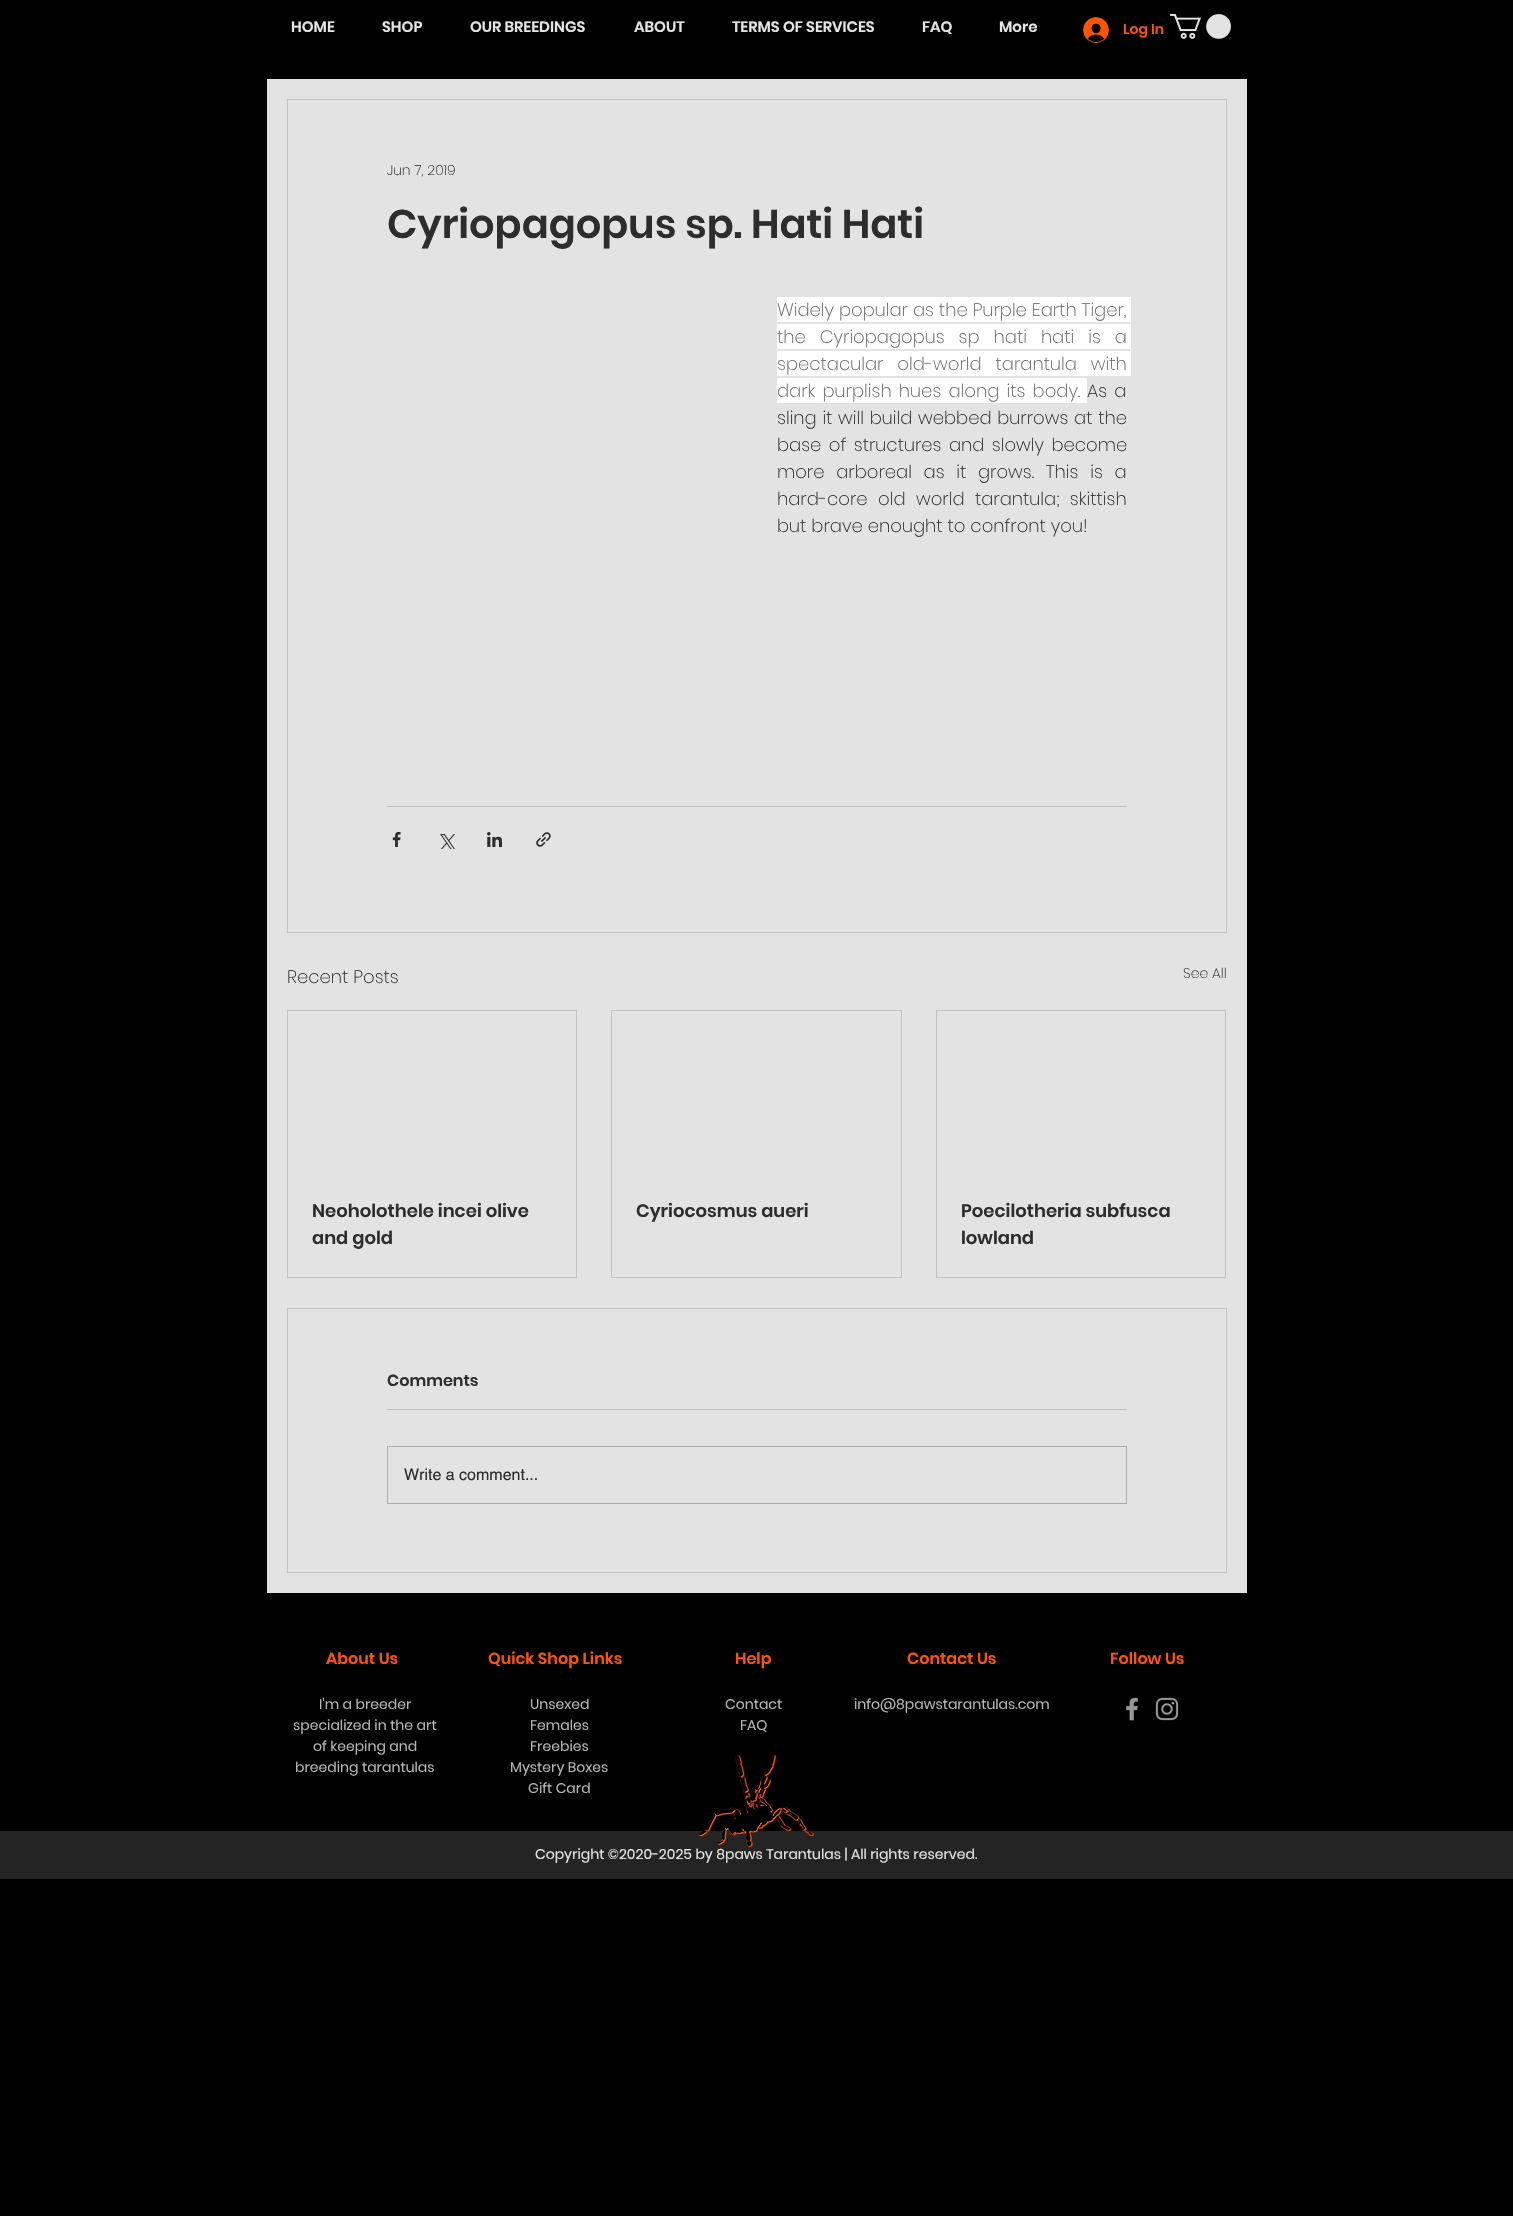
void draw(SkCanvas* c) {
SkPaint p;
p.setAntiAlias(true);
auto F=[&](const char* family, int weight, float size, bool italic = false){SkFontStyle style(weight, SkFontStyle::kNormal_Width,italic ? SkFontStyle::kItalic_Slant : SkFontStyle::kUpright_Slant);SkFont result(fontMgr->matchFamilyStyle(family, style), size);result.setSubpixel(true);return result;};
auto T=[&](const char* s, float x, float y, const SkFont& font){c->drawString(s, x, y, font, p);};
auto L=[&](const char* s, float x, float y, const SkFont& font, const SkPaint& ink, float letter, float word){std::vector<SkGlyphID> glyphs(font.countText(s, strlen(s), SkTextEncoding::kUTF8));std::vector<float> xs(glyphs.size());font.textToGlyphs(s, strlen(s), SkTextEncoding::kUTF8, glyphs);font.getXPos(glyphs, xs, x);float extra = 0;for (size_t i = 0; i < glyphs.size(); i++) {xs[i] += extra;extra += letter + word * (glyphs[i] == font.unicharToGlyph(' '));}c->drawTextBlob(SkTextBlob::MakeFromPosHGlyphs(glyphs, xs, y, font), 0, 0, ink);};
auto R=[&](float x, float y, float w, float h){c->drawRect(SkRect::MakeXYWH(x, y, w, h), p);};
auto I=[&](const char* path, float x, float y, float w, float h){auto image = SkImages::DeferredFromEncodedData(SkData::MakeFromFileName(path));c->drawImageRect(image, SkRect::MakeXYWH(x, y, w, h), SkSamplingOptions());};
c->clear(0xff000000);
auto f1 = F("Poppins",600,15);
p.setColor(0xffe3e3e3);
T("HOME",291,32,f1);
T("SHOP",382,32,f1);
T("OUR BREEDINGS",470,32,f1);
T("ABOUT",634,32,f1);
T("TERMS OF SERVICES",732,32,f1);
T("FAQ",922,32,f1);
T("More",999,32,f1);
I("1.png",1083,17,26,26);
auto f2 = F("Poppins",600,14);
p.setColor(0xffff5400);
T("Log In",1123,34,f2);
I("2.png",1170,14,61,25);
p.setColor(0xffe3e3e3);
R(267,79,980,1514);
p.setStroke(true);
p.setStrokeWidth(1);
p.setColor(0xffc2c2c2);
c->drawRect(SkRect::MakeXYWH(287.5,99.5,939,833),p);
auto f3 = F("Poppins",200,14);
p.setStroke(false);
p.setColor(0xff2d2d2d);
T("Jun 7, 2019",387,175,f3);
auto f4 = F("Poppins",600,40);
T("Cyriopagopus sp. Hati Hati",387,238,f4);
p.setColor(0xffffffff);
R(777,297,354,25);
auto f5 = F("Poppins",200,18);
p.setColor(0xff666666);
T("Widely popular as the Purple Earth Tiger,",777,316,f5);
p.setColor(0xffffffff);
R(777,324,354,25);
p.setColor(0xff666666);
L("the Cyriopagopus sp hati hati is a",777,343,f5,p,0,9);
p.setColor(0xffffffff);
R(777,351,354,25);
p.setColor(0xff666666);
L("spectacular old-world tarantula with",777,370,f5,p,0,9);
p.setColor(0xffffffff);
R(777,378,310,25);
p.setColor(0xff666666);
L("dark purplish hues along its body.",777,397,f5,p,0,2.25);
p.setColor(0xff2d2d2d);
L("As a",1087,397,f5,p,0,2.25);
L("sling it will build webbed burrows at the",777,424,f5,p,0,.75);
L("base of structures and slowly become",777,451,f5,p,0,2.5);
L("more arboreal as it grows. This is a",777,478,f5,p,0,6.75);
L("hard-core old world tarantula; skittish",777,505,f5,p,0,5.5);
T("but brave enought to confront you!",777,532,f5);
p.setColor(0xffbfbfbf);
R(387,806,740,1);
I("3.png",392,832,9,15);
I("4.png",440,834,15,15);
I("5.png",487,832,15,15);
I("6.png",536,832,15,15);
p.setColor(0xff2d2d2d);
T("Recent Posts",287,983,f5);
T("See All",1183,978,f3);
p.setStroke(true);
p.setColor(0xffc2c2c2);
c->drawRect(SkRect::MakeXYWH(287.5,1010.5,289,267),p);
auto f6 = F("Poppins",600,18);
p.setStroke(false);
p.setColor(0xff2d2d2d);
T("Neoholothele incei olive",312,1217,f6);
T("and gold",312,1244,f6);
p.setStroke(true);
p.setColor(0xffc2c2c2);
c->drawRect(SkRect::MakeXYWH(611.5,1010.5,290,267),p);
p.setStroke(false);
p.setColor(0xff2d2d2d);
T("Cyriocosmus aueri",636,1217,f6);
p.setStroke(true);
p.setColor(0xffc2c2c2);
c->drawRect(SkRect::MakeXYWH(936.5,1010.5,289,267),p);
p.setStroke(false);
p.setColor(0xff2d2d2d);
T("Poecilotheria subfusca",961,1217,f6);
T("lowland",961,1244,f6);
p.setStroke(true);
p.setColor(0xffc2c2c2);
c->drawRect(SkRect::MakeXYWH(287.5,1308.5,939,264),p);
auto f7 = F("Poppins",600,16);
p.setStroke(false);
p.setColor(0xff2d2d2d);
T("Comments",387,1386,f7);
p.setColor(0xffbfbfbf);
R(387,1409,740,1);
p.setStroke(true);
p.setColor(0xffacacac);
c->drawRect(SkRect::MakeXYWH(387.5,1446.5,739,57),p);
auto f8 = F("helvetica",400,16);
p.setStroke(false);
p.setColor(0xff2d2d2d);
T("Write a comment...",404,1480,f8);
p.setColor(0xffff5400);
T("About Us",326,1664,f7);
T("Quick Shop Links",488,1664,f7);
T("Help",735,1664,f7);
T("Contact Us",907,1664,f7);
T("Follow Us",1110,1664,f7);
auto f9 = F("Poppins",400,14);
p.setColor(0xffb6b6b6);
T("I'm a breeder",319,1709,f9);
T("specialized in the art",293,1730,f9);
T("of keeping and",313,1751,f9);
T("breeding tarantulas",295,1772,f9);
T("Unsexed",530,1709,f9);
T("Females",530,1730,f9);
T("Freebies",530,1751,f9);
T("Mystery Boxes",510,1772,f9);
T("Gift Card",528,1793,f9);
T("Contact",725,1709,f9);
T("FAQ",740,1730,f9);
T("info@8pawstarantulas.com",854,1709,f9);
I("7.png",1126,1697,13,24);
I("8.png",1155,1697,24,24);
p.setColor(0xff242424);
R(0,1831,1513,48);
p.setColor(0xffe3e3e3);
T("Copyright ©2020-2025 by 8paws Tarantulas | All rights reserved.",535,1859,f9);
I("9.png",698,1754,117,94);
}
